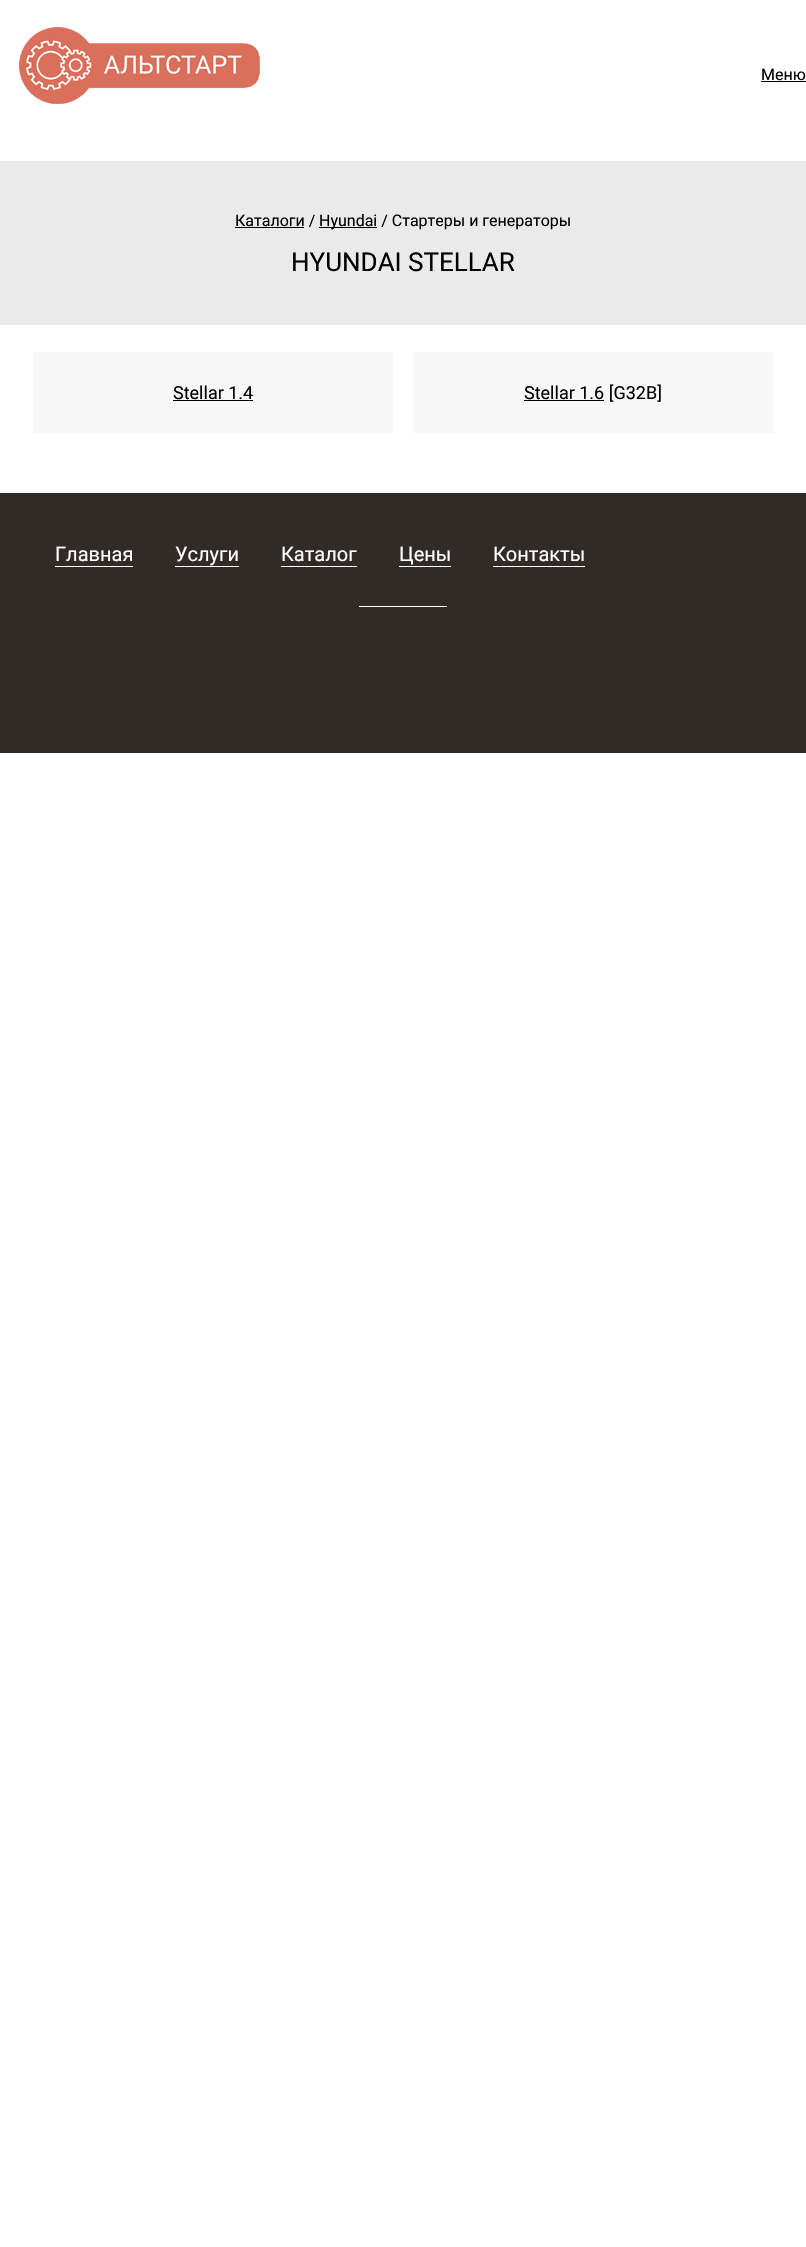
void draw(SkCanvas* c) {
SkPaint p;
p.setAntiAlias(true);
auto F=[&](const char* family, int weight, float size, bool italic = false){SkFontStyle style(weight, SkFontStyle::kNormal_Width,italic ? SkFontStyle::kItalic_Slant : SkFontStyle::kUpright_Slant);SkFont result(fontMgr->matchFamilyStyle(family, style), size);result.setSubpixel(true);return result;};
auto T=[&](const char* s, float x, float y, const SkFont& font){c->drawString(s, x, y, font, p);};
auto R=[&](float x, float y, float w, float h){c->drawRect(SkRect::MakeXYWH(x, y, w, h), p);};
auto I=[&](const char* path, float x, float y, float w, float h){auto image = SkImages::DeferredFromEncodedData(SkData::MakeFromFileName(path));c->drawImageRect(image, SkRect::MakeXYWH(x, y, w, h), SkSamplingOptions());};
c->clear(0xffffffff);
I("1.png",19,27,241,77);
auto f1 = F("Roboto",400,16);
p.setColor(0xff000000);
T("Меню",761,80,f1);
R(761,81,45,1);
p.setColor(0xffeaeaea);
R(0,161,806,164);
p.setColor(0xff000000);
T("Каталоги /",235,226,f1);
R(235,227,69,1);
R(319,227,58,1);
T("Hyundai / Стартеры и генераторы",319,226,f1);
auto f2 = F("Roboto",400,26);
T("HYUNDAI STELLAR",291,271,f2);
p.setColor(0xfff7f7f7);
R(33,352,360,81);
auto f3 = F("Roboto",400,18);
p.setColor(0xff000000);
T("Stellar 1.4",173,399,f3);
R(173,400,80,1);
p.setColor(0xfff7f7f7);
R(413,352,360,81);
p.setColor(0xff000000);
R(524,400,80,1);
T("Stellar 1.6 [G32B]",524,399,f3);
p.setColor(0xff312a27);
R(0,493,806,260);
auto f4 = F("Roboto",400,20);
p.setColor(0xffffffff);
T("Главная",55,561,f4);
R(55,566,78,1);
T("Услуги",175,561,f4);
R(175,566,64,1);
T("Каталог",281,561,f4);
R(281,566,76,1);
T("Цены",399,561,f4);
R(399,566,52,1);
T("Контакты",493,561,f4);
R(493,566,92,1);
R(359,606,88,1);
}
